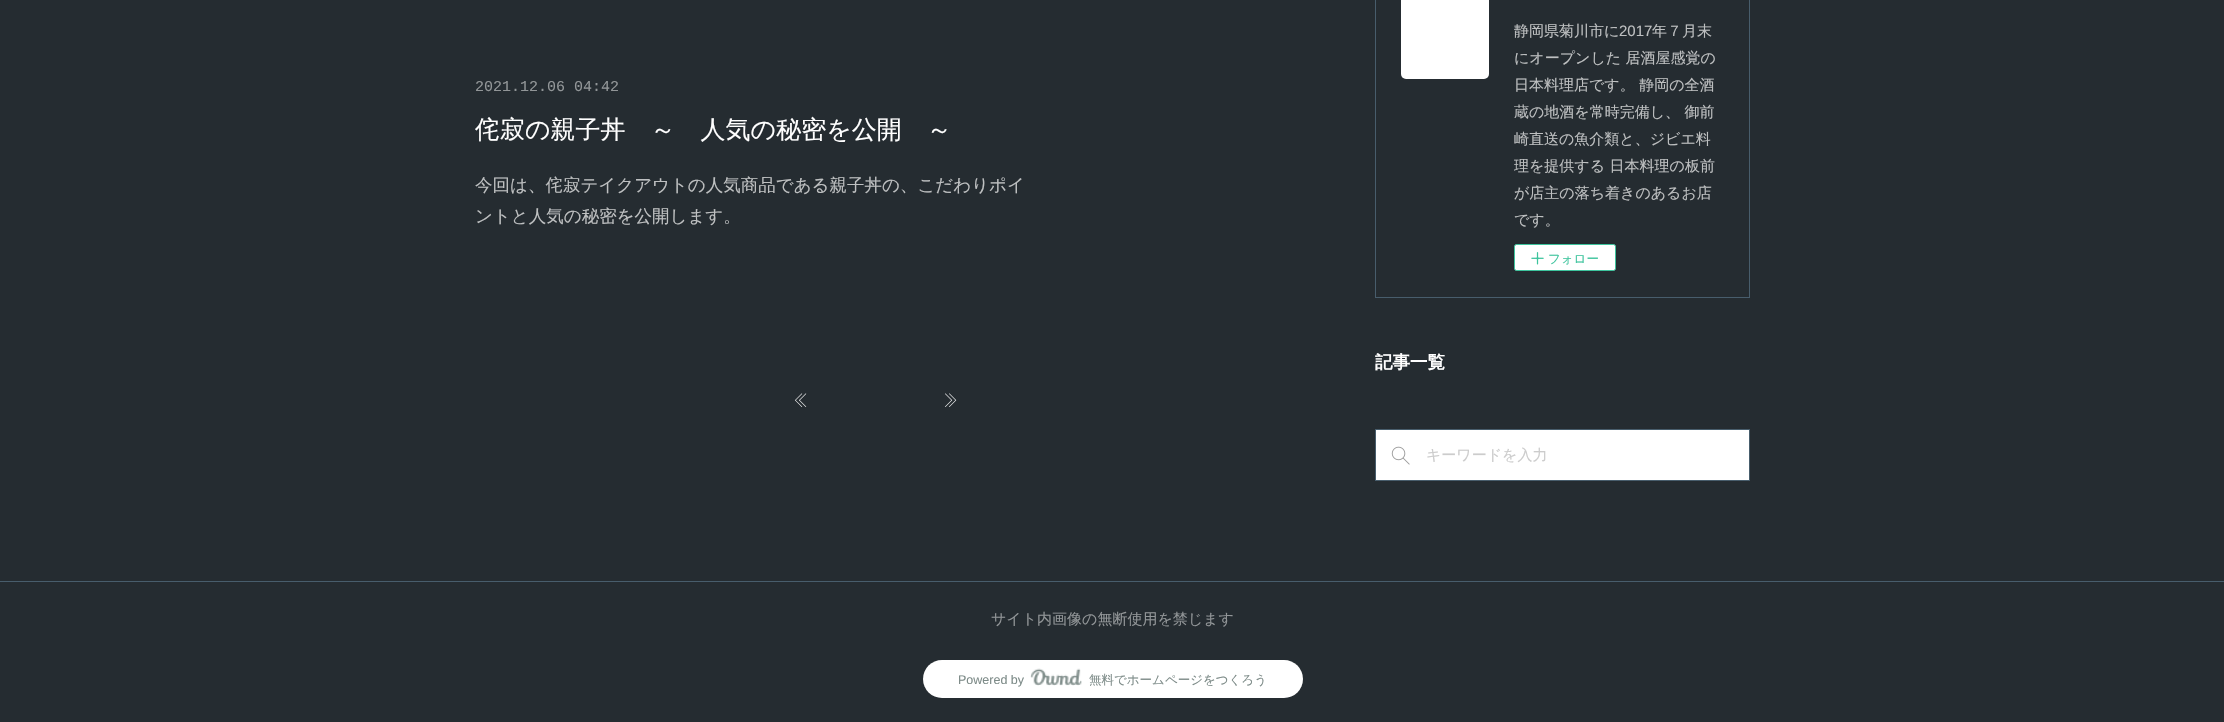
void draw(SkCanvas* c) {
SkPaint p;
p.setAntiAlias(true);
auto F=[&](const char* family, int weight, float size, bool italic = false){SkFontStyle style(weight, SkFontStyle::kNormal_Width,italic ? SkFontStyle::kItalic_Slant : SkFontStyle::kUpright_Slant);SkFont result(fontMgr->matchFamilyStyle(family, style), size);result.setSubpixel(true);return result;};
auto T=[&](const char* s, float x, float y, const SkFont& font){c->drawString(s, x, y, font, p);};
auto R=[&](float x, float y, float w, float h){c->drawRect(SkRect::MakeXYWH(x, y, w, h), p);};
auto Q=[&](float x, float y, float w, float h, float radius){c->drawRoundRect(SkRect::MakeXYWH(x, y, w, h), radius, radius, p);};
auto I=[&](const char* path, float x, float y, float w, float h){auto image = SkImages::DeferredFromEncodedData(SkData::MakeFromFileName(path));c->drawImageRect(image, SkRect::MakeXYWH(x, y, w, h), SkSamplingOptions());};
c->clear(0xff252c31);
auto f1 = F("Liberation Mono",400,15);
p.setColor(0xff929698);
T("2021.12.06 04:42",475,91,f1);
auto f2 = F("WenQuanYi Zen Hei",500,25);
p.setColor(0xffffffff);
T("侘寂の親子丼　～　人気の秘密を公開　～",475,138,f2);
auto f3 = F("WenQuanYi Zen Hei",500,17.5);
p.setColor(0xffbec0c1);
T("今回は、侘寂テイクアウトの人気商品である親子丼の、こだわりポイ",475,191,f3);
T("ントと人気の秘密を公開します。",475,222,f3);
I("1.png",795,393,12,14);
I("2.png",945,393,12,14);
p.setStroke(true);
p.setStrokeWidth(1);
p.setColor(0xff485d6c);
c->drawRect(SkRect::MakeXYWH(1375.5,-.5,374,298),p);
p.setStroke(false);
p.setColor(0xffffffff);
Q(1401,-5,88,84,5);
auto f4 = F("WenQuanYi Zen Hei",500,15);
p.setColor(0xffbec0c1);
T("静岡県菊川市に",1514,36,f4);
auto f5 = F("Liberation Sans",400,15);
T("2017",1619,36,f5);
T("年７月末",1652,36,f4);
T("にオープンした 居酒屋感覚の",1514,63,f4);
T("日本料理店です。 静岡の全酒",1514,90,f4);
T("蔵の地酒を常時完備し、 御前",1514,117,f4);
T("崎直送の魚介類と、ジビエ料",1514,144,f4);
T("理を提供する 日本料理の板前",1514,171,f4);
T("が店主の落ち着きのあるお店",1514,198,f4);
T("です。",1514,225,f4);
p.setColor(0xffffffff);
c->drawRoundRect(SkRect::MakeXYWH(1514.5,244.5,101,26),2,2,p);
p.setStroke(true);
p.setColor(0xff3dc49d);
c->drawRoundRect(SkRect::MakeXYWH(1514.5,244.5,101,26),2,2,p);
I("3.png",1531,252,13,13);
auto f6 = F("WenQuanYi Zen Hei",500,12.5);
p.setStroke(false);
T("フォロー",1548,263,f6);
auto f7 = F("WenQuanYi Zen Hei",700,17.5);
p.setColor(0xffffffff);
T("記事一覧",1375,368,f7);
c->drawRect(SkRect::MakeXYWH(1375.5,429.5,374,51),p);
p.setStroke(true);
p.setColor(0xff485d6c);
c->drawRect(SkRect::MakeXYWH(1375.5,429.5,374,51),p);
I("4.png",1391,446,19,19);
p.setStroke(false);
p.setColor(0xffcccccc);
T("キーワードを入力",1426,460,f4);
p.setColor(0xff485d6c);
R(0,581,2224,1);
p.setColor(0xff929698);
T("サイト内画像の無断使用を禁じます",991,624,f4);
p.setColor(0xffffffff);
Q(923,660,380,38,19);
auto f8 = F("Liberation Sans",400,12.5);
p.setColor(0xff7d8b88);
T("Powered by",958,684,f8);
I("5.png",1030,668,52,18);
T("無料でホームページをつくろう",1089,684,f6);
}
